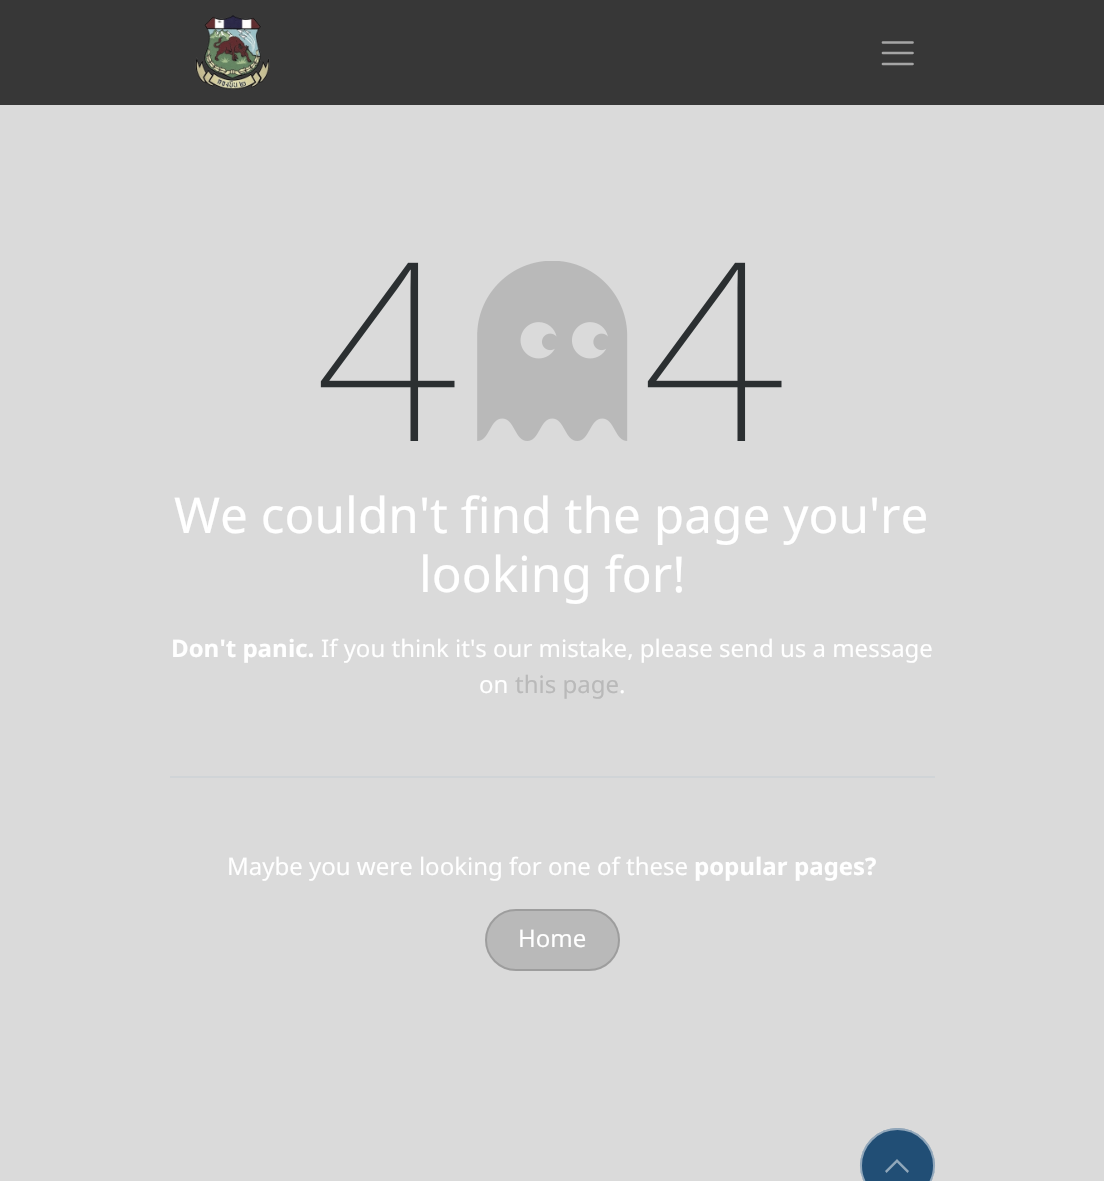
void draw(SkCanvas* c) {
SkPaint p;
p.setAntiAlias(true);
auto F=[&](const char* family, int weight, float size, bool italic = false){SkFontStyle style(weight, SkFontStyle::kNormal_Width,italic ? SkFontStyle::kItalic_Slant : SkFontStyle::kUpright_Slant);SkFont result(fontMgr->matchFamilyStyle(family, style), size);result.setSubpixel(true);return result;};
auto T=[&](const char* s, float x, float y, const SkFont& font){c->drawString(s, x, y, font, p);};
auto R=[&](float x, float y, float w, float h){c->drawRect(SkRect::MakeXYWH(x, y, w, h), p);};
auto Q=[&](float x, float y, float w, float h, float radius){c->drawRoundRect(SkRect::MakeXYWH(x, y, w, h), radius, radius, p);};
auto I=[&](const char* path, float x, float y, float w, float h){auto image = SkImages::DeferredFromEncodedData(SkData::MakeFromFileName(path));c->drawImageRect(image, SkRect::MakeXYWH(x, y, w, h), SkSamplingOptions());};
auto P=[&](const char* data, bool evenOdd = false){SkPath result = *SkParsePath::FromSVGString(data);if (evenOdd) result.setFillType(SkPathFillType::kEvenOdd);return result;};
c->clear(0xffdadada);
p.setColor(0xff373737);
R(0,0,1104,105);
I("1.png",195,15,75,75);
p.setStroke(true);
p.setStrokeWidth(2.7);
p.setStrokeCap(SkPaint::kRound_Cap);
p.setColor(0xffa5a5a5);
c->drawPath(P("M883 42.5h29.5m-29.5 10.5h29.5m-29.5 11h29.5"),p);
I("2.png",320,261,462,180);
auto f1 = F("Noto Sans Thai",400,49.5);
p.setStroke(false);
p.setColor(0xffffffff);
T("We couldn't find the page you're",174,533,f1);
T("looking for!",419,592,f1);
auto f2 = F("Noto Sans Thai",700,24);
T("Don't panic.",171,657,f2);
auto f3 = F("Noto Sans Thai",400,24);
T("If you think it's our mistake, please send us a message",321,657,f3);
T("on",479,693,f3);
p.setColor(0xffb9b9b9);
T("this page",515,693,f3);
p.setColor(0xffffffff);
T(".",619,693,f3);
p.setColor(0xffd0d4d7);
R(170,776,765,2);
p.setColor(0xffffffff);
T("Maybe you were looking for one of these",227,875,f3);
T("popular pages?",694,875,f2);
p.setColor(0xffb9b9b9);
Q(485,909,135,62,31);
p.setStroke(true);
p.setStrokeWidth(2);
p.setStrokeCap(SkPaint::kButt_Cap);
p.setColor(0x26000000);
c->drawRoundRect(SkRect::MakeXYWH(486,910,133,60),30,30,p);
p.setStroke(false);
p.setColor(0xffffffff);
T("Home",518,947,f3);
p.setColor(0xff214e75);
c->drawCircle(897.5,1165.5,37.5,p);
p.setStroke(true);
p.setColor(0x80ffffff);
c->drawCircle(897.5,1165.5,36.5,p);
p.setStroke(false);
p.setColor(0xff90a7ba);
c->drawPath(P("M897 1159l12 12l-1.5 2l-10.5-10.5l-10.5 10.5l-1.5-2z"),p);
}
